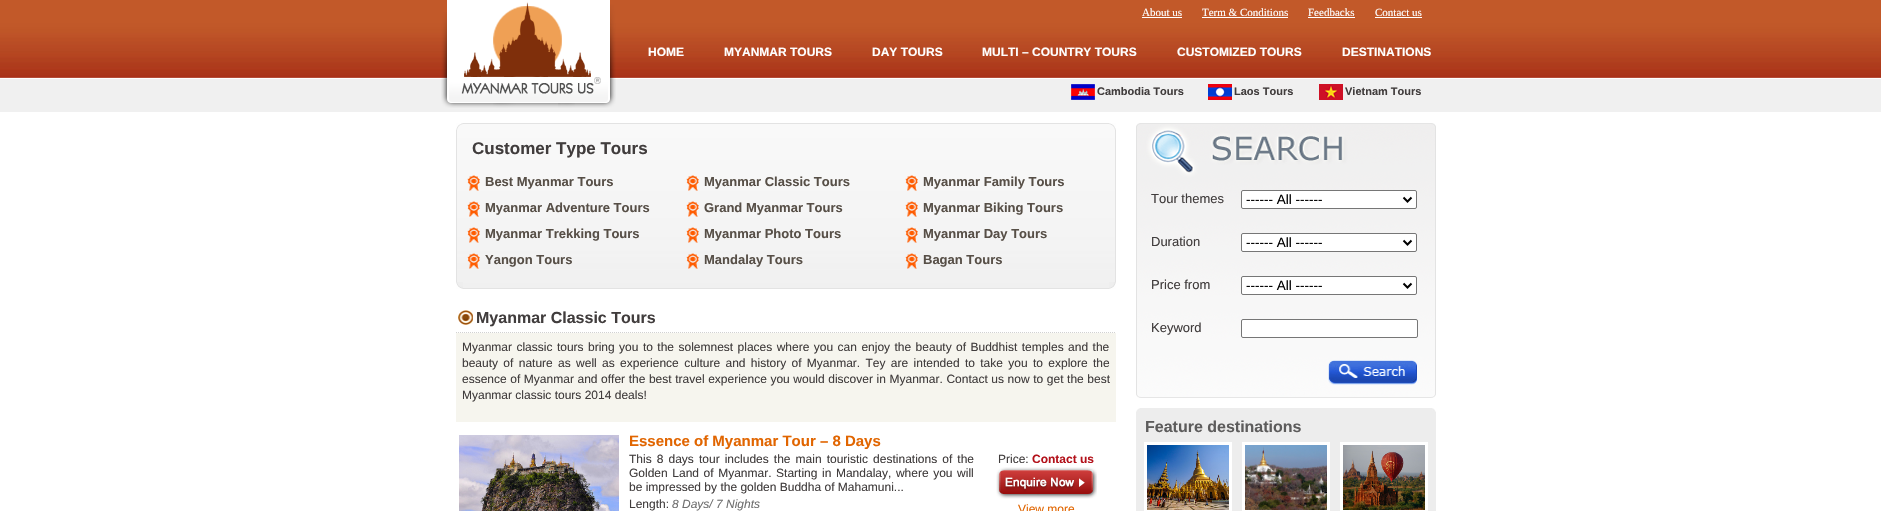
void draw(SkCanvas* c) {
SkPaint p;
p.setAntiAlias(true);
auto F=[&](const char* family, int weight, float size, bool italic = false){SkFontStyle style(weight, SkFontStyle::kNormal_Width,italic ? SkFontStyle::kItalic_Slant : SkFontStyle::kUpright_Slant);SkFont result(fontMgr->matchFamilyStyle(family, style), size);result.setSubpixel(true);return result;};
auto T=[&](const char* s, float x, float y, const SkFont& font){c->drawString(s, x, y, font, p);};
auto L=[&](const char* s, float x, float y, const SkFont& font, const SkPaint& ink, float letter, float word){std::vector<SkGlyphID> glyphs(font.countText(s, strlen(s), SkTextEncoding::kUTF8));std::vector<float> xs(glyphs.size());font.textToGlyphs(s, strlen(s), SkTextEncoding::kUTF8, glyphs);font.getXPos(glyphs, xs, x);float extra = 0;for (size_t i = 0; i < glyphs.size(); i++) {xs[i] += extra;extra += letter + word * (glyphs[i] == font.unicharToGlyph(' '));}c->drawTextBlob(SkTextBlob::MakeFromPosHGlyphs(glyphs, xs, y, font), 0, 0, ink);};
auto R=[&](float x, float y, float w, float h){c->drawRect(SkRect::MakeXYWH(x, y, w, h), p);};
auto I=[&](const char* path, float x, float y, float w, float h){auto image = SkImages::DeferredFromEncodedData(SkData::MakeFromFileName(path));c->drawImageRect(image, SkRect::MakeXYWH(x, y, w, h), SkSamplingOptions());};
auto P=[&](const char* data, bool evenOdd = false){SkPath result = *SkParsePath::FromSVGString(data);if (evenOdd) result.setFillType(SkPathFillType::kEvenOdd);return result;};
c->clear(0xffffffff);
I("1.png",0,0,1881,112);
I("2.png",441,0,1010,112);
I("3.png",441,0,175,108);
auto f1 = F("Liberation Serif",400,11);
p.setColor(0xffffffff);
T("About us",1142,16,f1);
R(1142,17,40,1);
T("Term & Conditions",1202,16,f1);
R(1202,17,86,1);
T("Feedbacks",1308,16,f1);
R(1308,17,47,1);
T("Contact us",1375,16,f1);
R(1375,17,47,1);
auto f2 = F("Liberation Sans",700,12);
T("HOME",648,56,f2);
T("MYANMAR TOURS",724,56,f2);
T("DAY TOURS",872,56,f2);
T("MULTI – COUNTRY TOURS",982,56,f2);
T("CUSTOMIZED TOURS",1177,56,f2);
T("DESTINATIONS",1342,56,f2);
I("4.png",1071,84,24,16);
auto f3 = F("Liberation Sans",700,11);
p.setColor(0xff413d3d);
T("Cambodia Tours",1097,95,f3);
I("5.png",1208,84,24,16);
T("Laos Tours",1234,95,f3);
I("6.png",1319,84,24,16);
T("Vietnam Tours",1345,95,f3);
I("7.png",457,124,658,164);
p.setStroke(true);
p.setStrokeWidth(1);
p.setColor(0xffe3e3e3);
c->drawRect(SkRect::MakeXYWH(456.5,123.5,659,165),p);
I("8.png",456,123,7,7);
I("9.png",1109,123,7,7);
auto f4 = F("Liberation Sans",700,17);
p.setStroke(false);
p.setColor(0xff413d3d);
T("Customer Type Tours",472,154,f4);
I("10.png",467,175,13,16);
auto f5 = F("Liberation Sans",700,13);
p.setColor(0xff574f47);
T("Best Myanmar Tours",485,186,f5);
I("11.png",686,175,13,16);
T("Myanmar Classic Tours",704,186,f5);
I("11.png",905,175,13,16);
T("Myanmar Family Tours",923,186,f5);
I("12.png",467,201,13,16);
T("Myanmar Adventure Tours",485,212,f5);
I("13.png",686,201,13,16);
T("Grand Myanmar Tours",704,212,f5);
I("13.png",905,201,13,16);
T("Myanmar Biking Tours",923,212,f5);
I("14.png",467,227,13,16);
T("Myanmar Trekking Tours",485,238,f5);
I("15.png",686,227,13,16);
T("Myanmar Photo Tours",704,238,f5);
I("15.png",905,227,13,16);
T("Myanmar Day Tours",923,238,f5);
I("16.png",467,253,13,16);
T("Yangon Tours",485,264,f5);
I("17.png",686,253,13,16);
T("Mandalay Tours",704,264,f5);
I("17.png",905,253,13,16);
T("Bagan Tours",923,264,f5);
I("18.png",456,282,7,7);
I("19.png",1109,282,7,7);
I("20.png",458,310,15,15);
p.setStroke(true);
p.setColor(0xffd1d1d1);
p.setPathEffect(SkDashPathEffect::Make({{1,1}}, 0));
c->drawPath(P("M456 332.5h660"),p);
p.setPathEffect(nullptr);
auto f6 = F("Liberation Sans",700,16);
p.setStroke(false);
p.setColor(0xff413d3d);
T("Myanmar Classic Tours",476,323,f6);
p.setColor(0xfff6f5ee);
R(456,333,660,89);
auto f7 = F("Liberation Sans",400,12);
p.setColor(0xff413d3d);
L("Myanmar classic tours bring you to the solemnest places where you can enjoy the beauty of Buddhist temples and the",462,351,f7,p,0,1.1);
L("beauty of nature as well as experience culture and history of Myanmar. Tey are intended to take you to explore the",462,367,f7,p,0,2);
L("essence of Myanmar and offer the best travel experience you would discover in Myanmar. Contact us now to get the best",462,383,f7,p,0,.25);
T("Myanmar classic tours 2014 deals!",462,399,f7);
I("21.png",459,435,160,76);
auto f8 = F("Liberation Sans",700,15);
p.setColor(0xffe16500);
T("Essence of Myanmar Tour – 8 Days",629,446,f8);
p.setColor(0xff413d3d);
L("This 8 days tour includes the main touristic destinations of the",629,463,f7,p,0,1.75);
L("Golden Land of Myanmar. Starting in Mandalay, where you will",629,477,f7,p,0,1.25);
T("be impressed by the golden Buddha of Mahamuni...",629,491,f7);
T("Length:",629,508,f7);
auto f9 = F("Liberation Sans",400,12,true);
p.setColor(0xff6f6f6f);
T("8 Days/ 7 Nights",672,508,f9);
p.setColor(0xff413d3d);
T("Price:",998,463,f7);
p.setColor(0xffb3111a);
T("Contact us",1032,463,f2);
I("22.png",996,467,101,32);
p.setColor(0xffe16500);
T("View more",1018,513,f7);
I("23.png",1136,123,300,275);
auto f10 = F("Liberation Sans",400,13);
p.setColor(0xff413d3d);
T("Tour themes",1151,203,f10);
p.setColor(0xffffffff);
c->drawRoundRect(SkRect::MakeXYWH(1241.5,190.5,175,18),1.5,1.5,p);
p.setStroke(true);
p.setColor(0xff767676);
c->drawRoundRect(SkRect::MakeXYWH(1241.5,190.5,175,18),1.5,1.5,p);
p.setStrokeWidth(2);
p.setColor(0xff000000);
c->drawPath(P("M1403.5 197.5l4 4l4-4"),p);
auto f11 = F("Liberation Sans",400,13.5);
p.setStroke(false);
T("------ All ------",1246,204,f11);
p.setColor(0xff413d3d);
T("Duration",1151,246,f10);
p.setColor(0xffffffff);
c->drawRoundRect(SkRect::MakeXYWH(1241.5,233.5,175,18),1.5,1.5,p);
p.setStroke(true);
p.setStrokeWidth(1);
p.setColor(0xff767676);
c->drawRoundRect(SkRect::MakeXYWH(1241.5,233.5,175,18),1.5,1.5,p);
p.setStrokeWidth(2);
p.setColor(0xff000000);
c->drawPath(P("M1403.5 240.5l4 4l4-4"),p);
p.setStroke(false);
T("------ All ------",1246,247,f11);
p.setColor(0xff413d3d);
T("Price from",1151,289,f10);
p.setColor(0xffffffff);
c->drawRoundRect(SkRect::MakeXYWH(1241.5,276.5,175,18),1.5,1.5,p);
p.setStroke(true);
p.setStrokeWidth(1);
p.setColor(0xff767676);
c->drawRoundRect(SkRect::MakeXYWH(1241.5,276.5,175,18),1.5,1.5,p);
p.setStrokeWidth(2);
p.setColor(0xff000000);
c->drawPath(P("M1403.5 283.5l4 4l4-4"),p);
p.setStroke(false);
T("------ All ------",1246,290,f11);
p.setColor(0xff413d3d);
T("Keyword",1151,332,f10);
p.setColor(0xffffffff);
c->drawRoundRect(SkRect::MakeXYWH(1241.5,319.5,176,18),1.5,1.5,p);
p.setStroke(true);
p.setStrokeWidth(1);
p.setColor(0xff767676);
c->drawRoundRect(SkRect::MakeXYWH(1241.5,319.5,176,18),1.5,1.5,p);
I("24.png",1328,360,89,25);
p.setStroke(false);
p.setColor(0xffededed);
R(1136,408,300,103);
I("25.png",1136,408,4,4);
I("26.png",1432,408,4,4);
p.setColor(0xffffffff);
R(1144,442,88,69);
I("27.png",1147,445,82,65);
R(1242,442,88,69);
I("28.png",1245,445,82,65);
R(1340,442,88,69);
I("29.png",1343,445,82,65);
p.setColor(0xff5d5c5c);
T("Feature destinations",1145,432,f6);
}
